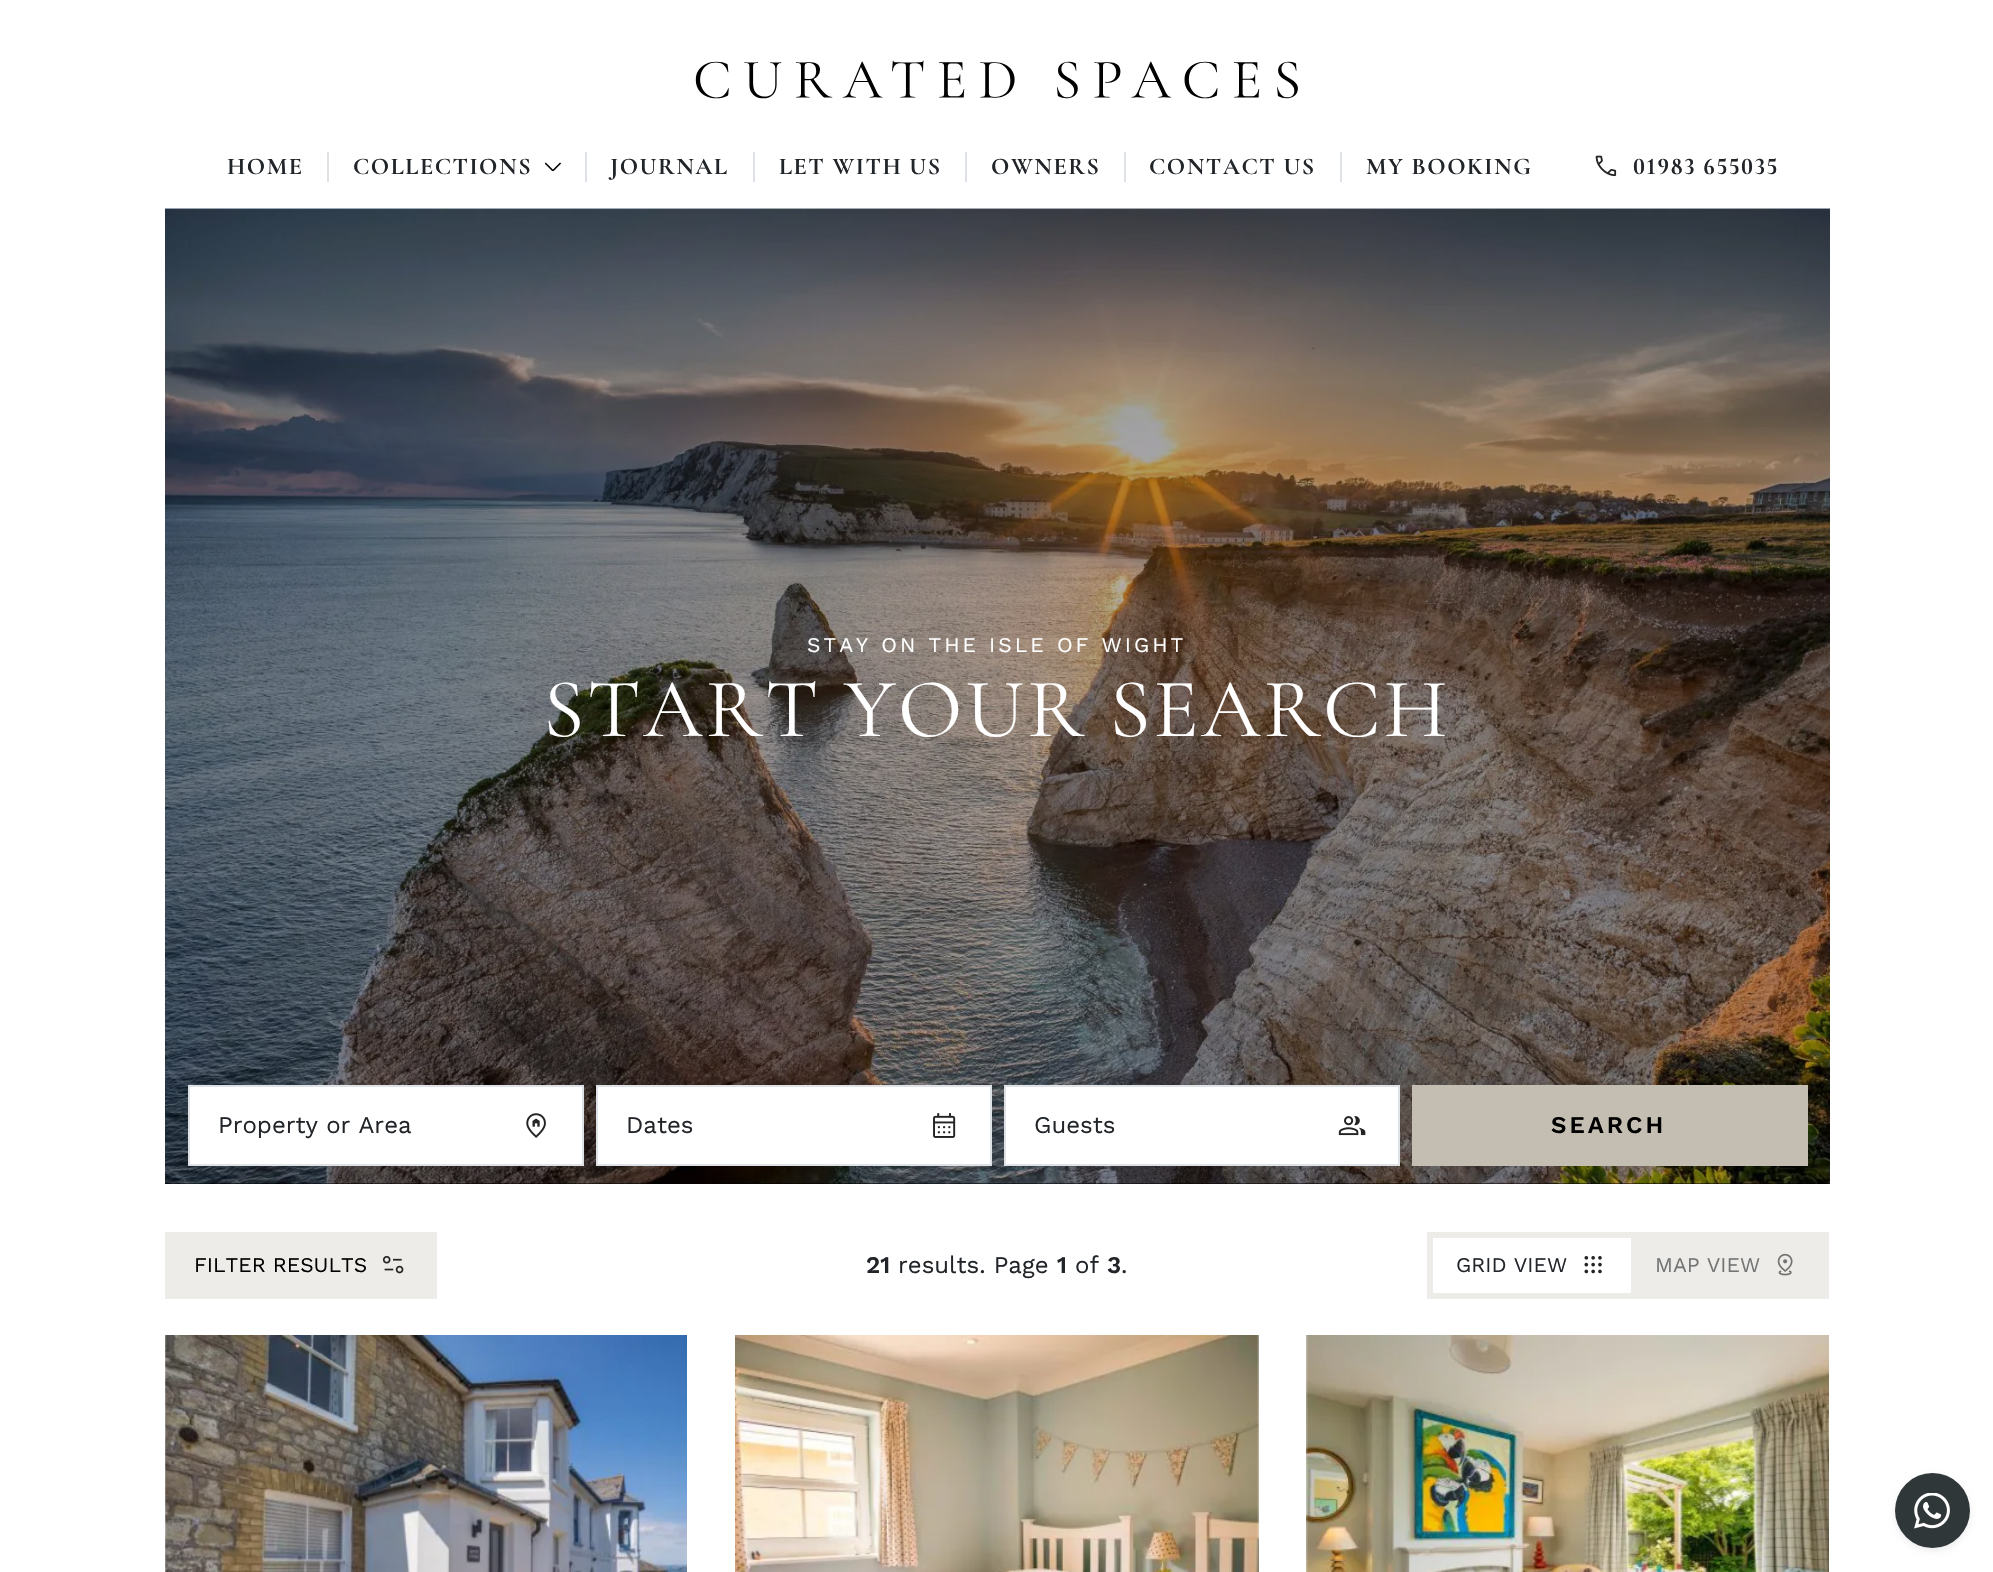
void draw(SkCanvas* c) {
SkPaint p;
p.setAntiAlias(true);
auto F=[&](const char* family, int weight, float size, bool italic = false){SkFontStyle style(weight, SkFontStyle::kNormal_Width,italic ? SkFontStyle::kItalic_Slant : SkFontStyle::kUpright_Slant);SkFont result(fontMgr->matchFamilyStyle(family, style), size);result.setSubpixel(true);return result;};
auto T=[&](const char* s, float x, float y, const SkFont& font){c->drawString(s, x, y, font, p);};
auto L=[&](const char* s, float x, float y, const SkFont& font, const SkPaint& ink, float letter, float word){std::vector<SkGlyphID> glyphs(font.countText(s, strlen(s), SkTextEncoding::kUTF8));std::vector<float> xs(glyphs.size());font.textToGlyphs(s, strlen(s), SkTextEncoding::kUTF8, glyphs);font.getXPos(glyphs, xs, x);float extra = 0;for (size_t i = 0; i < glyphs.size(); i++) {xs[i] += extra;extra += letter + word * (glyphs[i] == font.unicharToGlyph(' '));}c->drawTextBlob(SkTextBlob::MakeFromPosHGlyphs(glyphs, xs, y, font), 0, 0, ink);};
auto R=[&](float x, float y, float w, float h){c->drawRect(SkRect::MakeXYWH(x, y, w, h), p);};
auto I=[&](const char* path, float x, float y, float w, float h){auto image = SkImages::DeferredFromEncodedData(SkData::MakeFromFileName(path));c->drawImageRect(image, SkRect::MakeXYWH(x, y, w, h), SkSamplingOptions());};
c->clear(0xffffffff);
I("1.png",695,60,603,39);
auto f1 = F("Cormorant Garamond",700,24);
p.setColor(0xff212529);
L("HOME",227,174,f1,p,1.5,0);
p.setColor(0xffdee2e6);
R(327,152,2,30);
p.setColor(0xff212529);
L("COLLECTIONS",353,174,f1,p,1.5,0);
I("2.png",545,162,16,9);
p.setColor(0xffdee2e6);
R(585,152,2,30);
p.setColor(0xff212529);
L("JOURNAL",610,174,f1,p,1.5,0);
p.setColor(0xffdee2e6);
R(753,152,2,30);
p.setColor(0xff212529);
L("LET WITH US",779,174,f1,p,1.5,0);
p.setColor(0xffdee2e6);
R(965,152,2,30);
p.setColor(0xff212529);
L("OWNERS",991,174,f1,p,1.5,0);
p.setColor(0xffdee2e6);
R(1124,152,2,30);
p.setColor(0xff212529);
L("CONTACT US",1149,174,f1,p,1.5,0);
p.setColor(0xffdee2e6);
R(1340,152,2,30);
p.setColor(0xff212529);
L("MY BOOKING",1366,174,f1,p,1.5,0);
I("3.png",1595,155,22,22);
auto f2 = F("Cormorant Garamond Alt",700,24);
L("01983 655035",1633,174,f2,p,1.5,0);
p.setColor(0xff000000);
R(165,1183,1665,1);
I("4.png",165,208,1665,976);
auto f3 = F("Work Sans",400,21);
p.setColor(0xffffffff);
L("STAY ON THE ISLE OF WIGHT",807,652,f3,p,3,0);
auto f4 = F("Cormorant Garamond",400,84);
L("START YOUR SEARCH",543,736,f4,p,3,0);
c->drawRect(SkRect::MakeXYWH(189,1086,394,79),p);
p.setStroke(true);
p.setStrokeWidth(2);
p.setColor(0xffdee2e6);
c->drawRect(SkRect::MakeXYWH(189,1086,394,79),p);
auto f5 = F("Work Sans",400,24);
p.setStroke(false);
p.setColor(0xff212529);
T("Property or Area",218,1133,f5);
I("5.png",526,1113,20,25);
p.setColor(0xffffffff);
c->drawRect(SkRect::MakeXYWH(597,1086,394,79),p);
p.setStroke(true);
p.setColor(0xffdee2e6);
c->drawRect(SkRect::MakeXYWH(597,1086,394,79),p);
p.setStroke(false);
p.setColor(0xff212529);
T("Dates",626,1133,f5);
I("6.png",933,1113,23,25);
p.setColor(0xffffffff);
c->drawRect(SkRect::MakeXYWH(1005,1086,394,79),p);
p.setStroke(true);
p.setColor(0xffdee2e6);
c->drawRect(SkRect::MakeXYWH(1005,1086,394,79),p);
p.setStroke(false);
p.setColor(0xff212529);
T("Guests",1034,1133,f5);
I("7.png",1338,1116,28,20);
p.setColor(0xffc4beb2);
R(1412,1085,396,81);
auto f6 = F("Work Sans",600,24);
p.setColor(0xff000000);
L("SEARCH",1551,1133,f6,p,3,0);
p.setColor(0xffedece8);
R(165,1232,272,67);
p.setColor(0xff000000);
T("FILTER RESULTS",194,1272,f3);
I("8.png",382,1256,22,18);
p.setColor(0xff212529);
T("21",866,1273,f6);
T("results. Page",898,1273,f5);
T("1",1057,1273,f6);
T("of",1075,1273,f5);
T("3",1107,1273,f6);
T(".",1121,1273,f5);
p.setColor(0xffedece8);
R(1427,1232,402,67);
p.setColor(0xffffffff);
R(1433,1238,198,55);
p.setColor(0xff212529);
T("GRID VIEW",1456,1272,f3);
I("9.png",1584,1256,18,18);
p.setColor(0xff737575);
T("MAP VIEW",1655,1272,f3);
I("10.png",1777,1253,16,23);
I("11.png",165,1335,522,237);
I("12.png",735,1335,524,237);
I("13.png",1306,1335,523,237);
p.setColor(0x12000000);
p.setMaskFilter(SkMaskFilter::MakeBlur(kNormal_SkBlurStyle, 3));
c->drawRoundRect(SkRect::MakeXYWH(1895,1476,75,75),37.5,37.5,p);
p.setMaskFilter(nullptr);
p.setColor(0xff303739);
c->drawCircle(1932.5,1510.5,37.5,p);
I("14.png",1914,1493,36,36);
}
